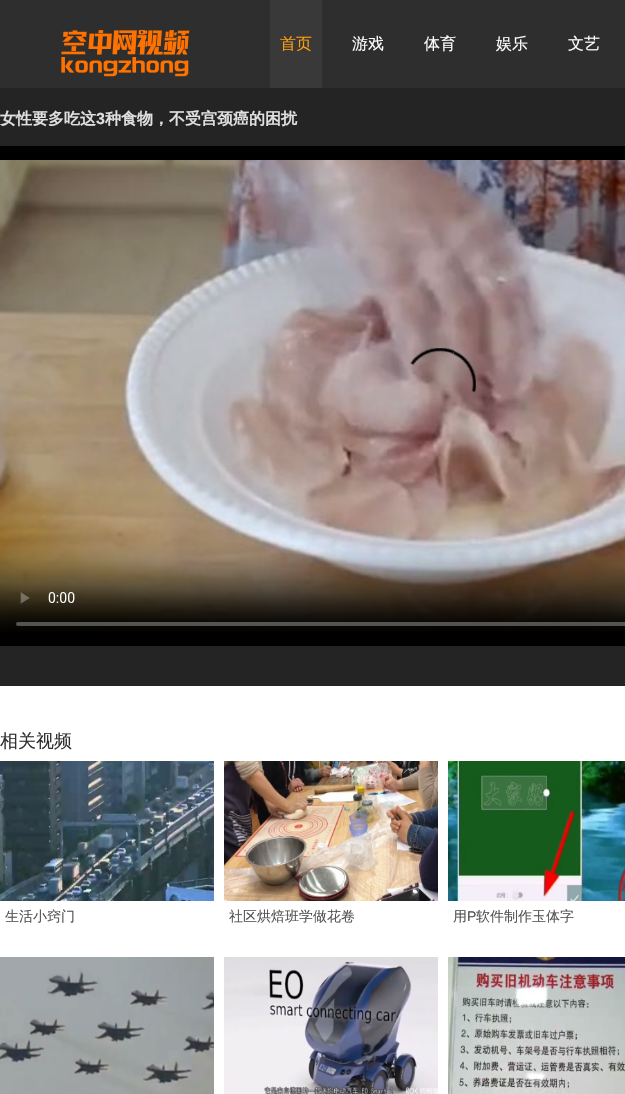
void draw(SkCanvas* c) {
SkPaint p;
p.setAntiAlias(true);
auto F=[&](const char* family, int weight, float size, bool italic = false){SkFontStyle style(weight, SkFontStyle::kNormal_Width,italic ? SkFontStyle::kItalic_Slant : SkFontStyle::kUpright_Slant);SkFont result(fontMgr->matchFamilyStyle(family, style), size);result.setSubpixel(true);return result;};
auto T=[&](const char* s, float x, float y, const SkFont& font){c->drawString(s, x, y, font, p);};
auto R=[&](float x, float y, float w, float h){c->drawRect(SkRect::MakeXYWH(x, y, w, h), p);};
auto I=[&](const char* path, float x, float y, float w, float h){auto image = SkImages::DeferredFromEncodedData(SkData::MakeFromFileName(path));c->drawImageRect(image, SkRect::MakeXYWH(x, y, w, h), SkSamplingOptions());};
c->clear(0xffffffff);
p.setColor(0xff2e2e2e);
R(0,0,625,88);
I("1.png",61,30,129,47);
p.setColor(0xff393939);
R(270,0,52,88);
auto f1 = F("WenQuanYi Zen Hei",500,16);
p.setColor(0xfffe9e0e);
T("首页",280,49,f1);
p.setColor(0xffffffff);
T("游戏",352,49,f1);
T("体育",424,49,f1);
T("娱乐",496,49,f1);
T("文艺",568,49,f1);
p.setColor(0xff242424);
R(0,88,625,598);
auto f2 = F("WenQuanYi Zen Hei",700,16);
p.setColor(0xffe0e0e0);
T("女性要多吃这",0,124,f2);
auto f3 = F("Liberation Sans",700,16);
T("3",96,124,f3);
T("种食物，不受宫颈癌的困扰",105,124,f2);
p.setColor(0xff000000);
R(0,146,625,500);
I("2.png",0,160,625,472);
auto f4 = F("WenQuanYi Zen Hei",500,18);
p.setColor(0xff2e2e2e);
T("相关视频",0,747,f4);
I("3.png",0,761,214,140);
auto f5 = F("WenQuanYi Zen Hei",500,14);
p.setColor(0xff535353);
T("生活小窍门",5,921,f5);
I("4.png",224,761,214,140);
T("社区烘焙班学做花卷",229,921,f5);
I("5.png",448,761,177,140);
T("用",453,921,f5);
auto f6 = F("Liberation Sans",400,14);
T("P",467,921,f6);
T("软件制作玉体字",476,921,f5);
I("6.png",0,957,214,137);
I("7.png",224,957,214,137);
I("8.png",448,957,177,137);
}
